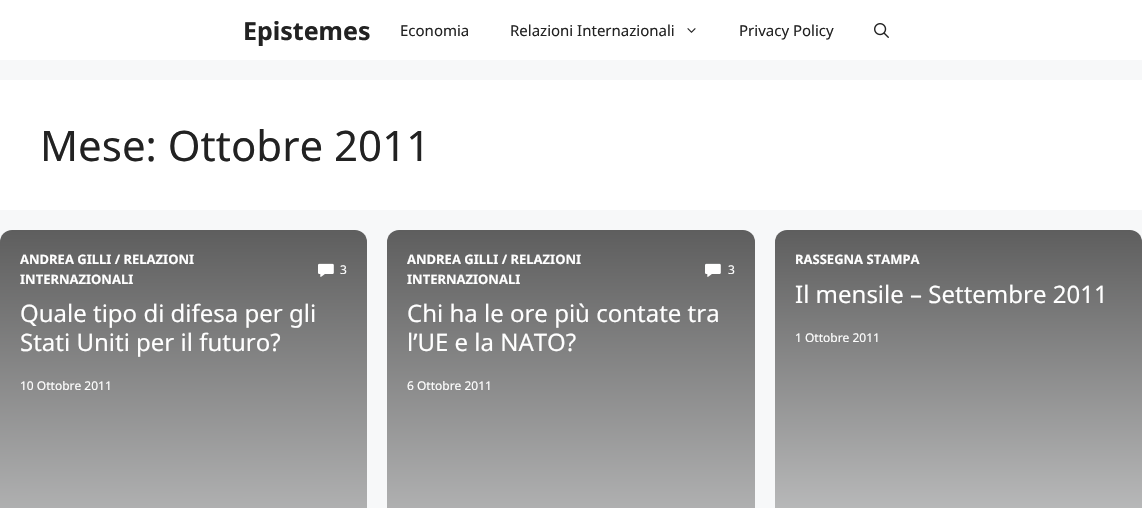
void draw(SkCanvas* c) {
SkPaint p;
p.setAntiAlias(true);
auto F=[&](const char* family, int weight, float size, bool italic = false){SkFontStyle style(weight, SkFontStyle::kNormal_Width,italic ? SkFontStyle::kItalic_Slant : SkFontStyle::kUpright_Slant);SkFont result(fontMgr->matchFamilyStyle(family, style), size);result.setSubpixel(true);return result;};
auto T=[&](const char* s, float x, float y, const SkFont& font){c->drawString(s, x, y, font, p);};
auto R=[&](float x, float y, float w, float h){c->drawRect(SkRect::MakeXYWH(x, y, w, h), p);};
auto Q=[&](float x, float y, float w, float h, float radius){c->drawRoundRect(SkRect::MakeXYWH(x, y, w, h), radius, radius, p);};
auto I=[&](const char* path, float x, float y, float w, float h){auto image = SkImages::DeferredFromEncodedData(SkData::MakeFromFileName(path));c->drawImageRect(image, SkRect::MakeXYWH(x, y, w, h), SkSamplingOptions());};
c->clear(0xfff7f8f9);
p.setColor(0xffffffff);
R(0,0,1142,60);
auto f1 = F("Noto Sans",700,25);
p.setColor(0xff222222);
T("Epistemes",243,40,f1);
auto f2 = F("Noto Sans",400,15);
T("Economia",400,36,f2);
T("Relazioni Internazionali",510,36,f2);
I("1.png",687,28,9,5);
T("Privacy Policy",739,36,f2);
I("2.png",874,23,15,15);
p.setColor(0xffffffff);
R(0,80,1142,130);
auto f3 = F("Noto Sans",400,42);
p.setColor(0xff222222);
T("Mese: Ottobre 2011",40,161,f3);
{
const SkColor colors[] = {0xff5e5e5e,0xfff7f8f9};
const float stops[] = {0,1};
const SkPoint ends[] = {{183,230}, {184,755}};
p.setShader(SkGradientShader::MakeLinear(ends, colors, stops, 2, SkTileMode::kClamp));
p.setAlpha(255);
}
Q(0,230,367,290,12);
auto f4 = F("Noto Sans",700,13);
p.setShader(nullptr);
p.setColor(0xffffffff);
T("ANDREA GILLI / RELAZIONI",20,264,f4);
T("INTERNAZIONALI",20,284,f4);
I("3.png",318,263,16,14);
auto f5 = F("Noto Sans",400,12);
T("3",340,274,f5);
auto f6 = F("Noto Sans",400,24);
T("Quale tipo di difesa per gli",20,322,f6);
T("Stati Uniti per il futuro?",20,351,f6);
T("10 Ottobre 2011",20,390,f5);
{
const SkColor colors[] = {0xff5e5e5e,0xfff7f8f9};
const float stops[] = {0,1};
const SkPoint ends[] = {{571,230}, {571,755}};
p.setShader(SkGradientShader::MakeLinear(ends, colors, stops, 2, SkTileMode::kClamp));
p.setAlpha(255);
}
Q(387,230,368,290,12);
p.setShader(nullptr);
p.setColor(0xffffffff);
T("ANDREA GILLI / RELAZIONI",407,264,f4);
T("INTERNAZIONALI",407,284,f4);
I("4.png",705,263,16,14);
T("3",728,274,f5);
T("Chi ha le ore più contate tra",407,322,f6);
T("l’UE e la NATO?",407,351,f6);
T("6 Ottobre 2011",407,390,f5);
{
const SkColor colors[] = {0xff5e5e5e,0xfff7f8f9};
const float stops[] = {0,1};
const SkPoint ends[] = {{959,230}, {959,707}};
p.setShader(SkGradientShader::MakeLinear(ends, colors, stops, 2, SkTileMode::kClamp));
p.setAlpha(255);
}
Q(775,230,367,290,12);
p.setShader(nullptr);
p.setColor(0xffffffff);
T("RASSEGNA STAMPA",795,264,f4);
T("Il mensile – Settembre 2011",795,303,f6);
T("1 Ottobre 2011",795,342,f5);
}
